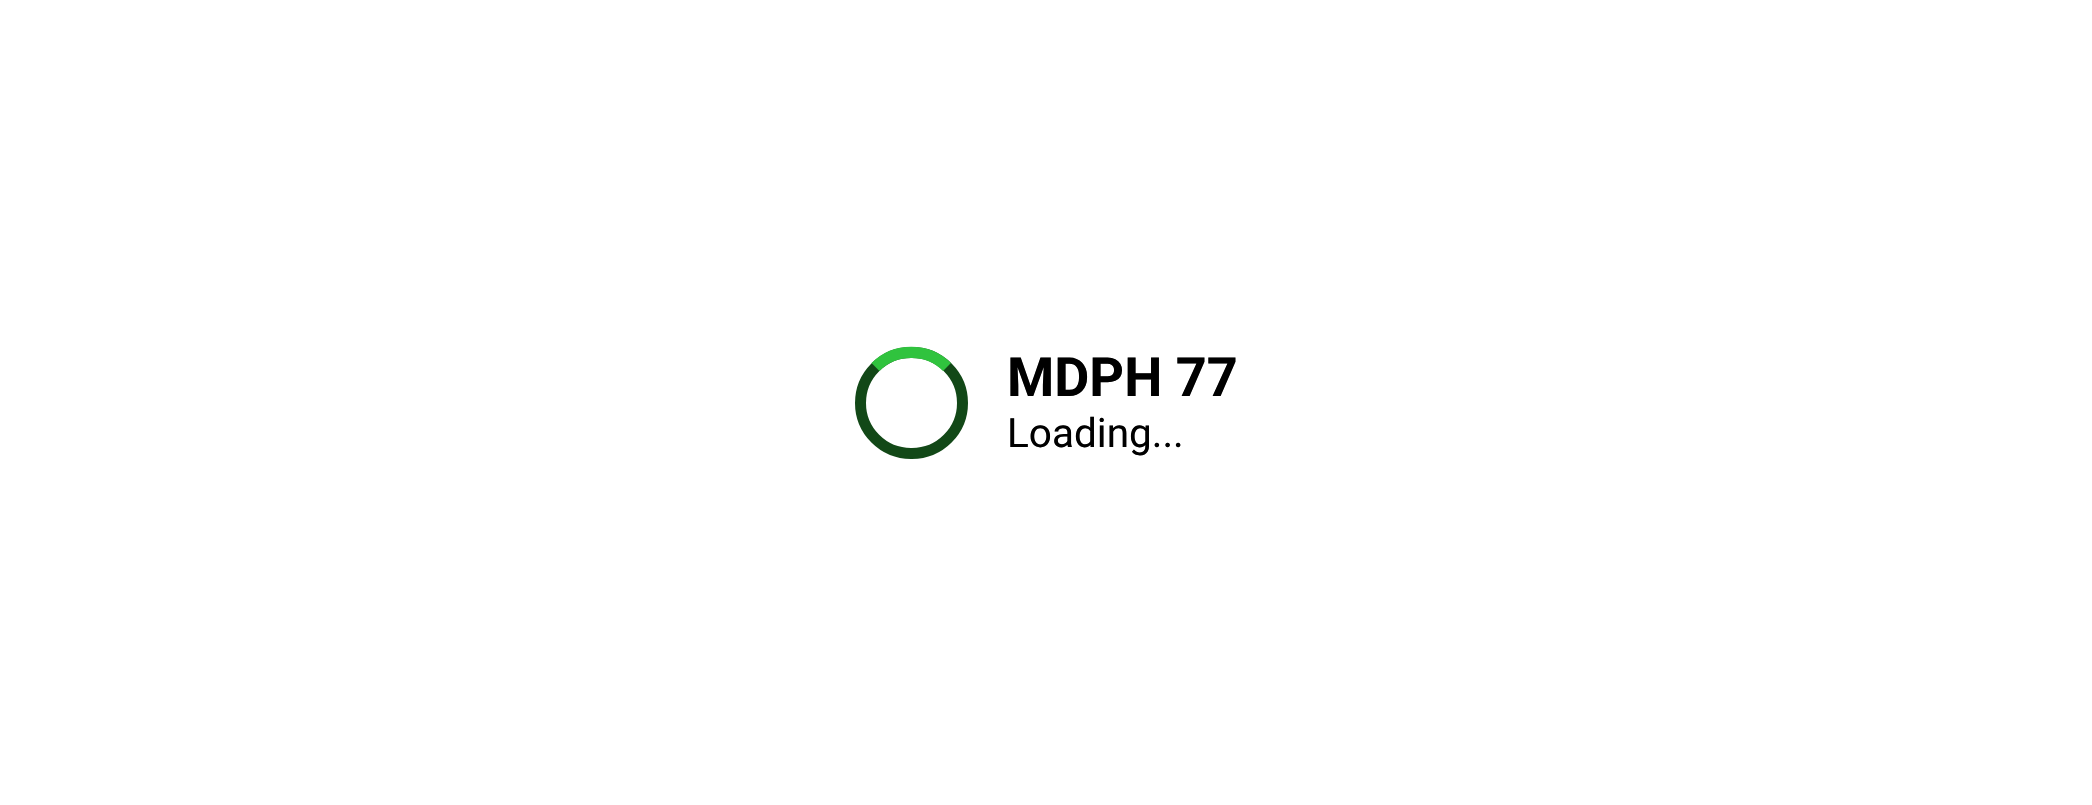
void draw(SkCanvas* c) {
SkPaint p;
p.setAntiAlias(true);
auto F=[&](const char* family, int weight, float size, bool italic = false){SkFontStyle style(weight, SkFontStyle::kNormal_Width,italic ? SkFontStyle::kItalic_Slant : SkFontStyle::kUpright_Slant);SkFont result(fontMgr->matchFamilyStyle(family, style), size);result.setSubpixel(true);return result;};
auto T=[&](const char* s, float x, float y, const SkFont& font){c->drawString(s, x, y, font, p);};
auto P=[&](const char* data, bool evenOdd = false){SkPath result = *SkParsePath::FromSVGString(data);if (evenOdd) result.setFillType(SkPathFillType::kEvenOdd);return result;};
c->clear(0xffffffff);
p.setStroke(true);
p.setStrokeWidth(11);
p.setColor(0xff124817);
c->drawRoundRect(SkRect::MakeXYWH(860.5,352.5,102,101),50.5,50.5,p);
p.setStrokeWidth(11.2);
p.setColor(0xff30c33e);
c->drawPath(P("M875.5 367c19.5-19.5 52-19.5 71.5 0"),p);
auto f1 = F("Roboto",700,54);
p.setStroke(false);
p.setColor(0xff000000);
T("MDPH 77",1007,396,f1);
auto f2 = F("Roboto",400,40.5);
T("Loading...",1007,447,f2);
}
